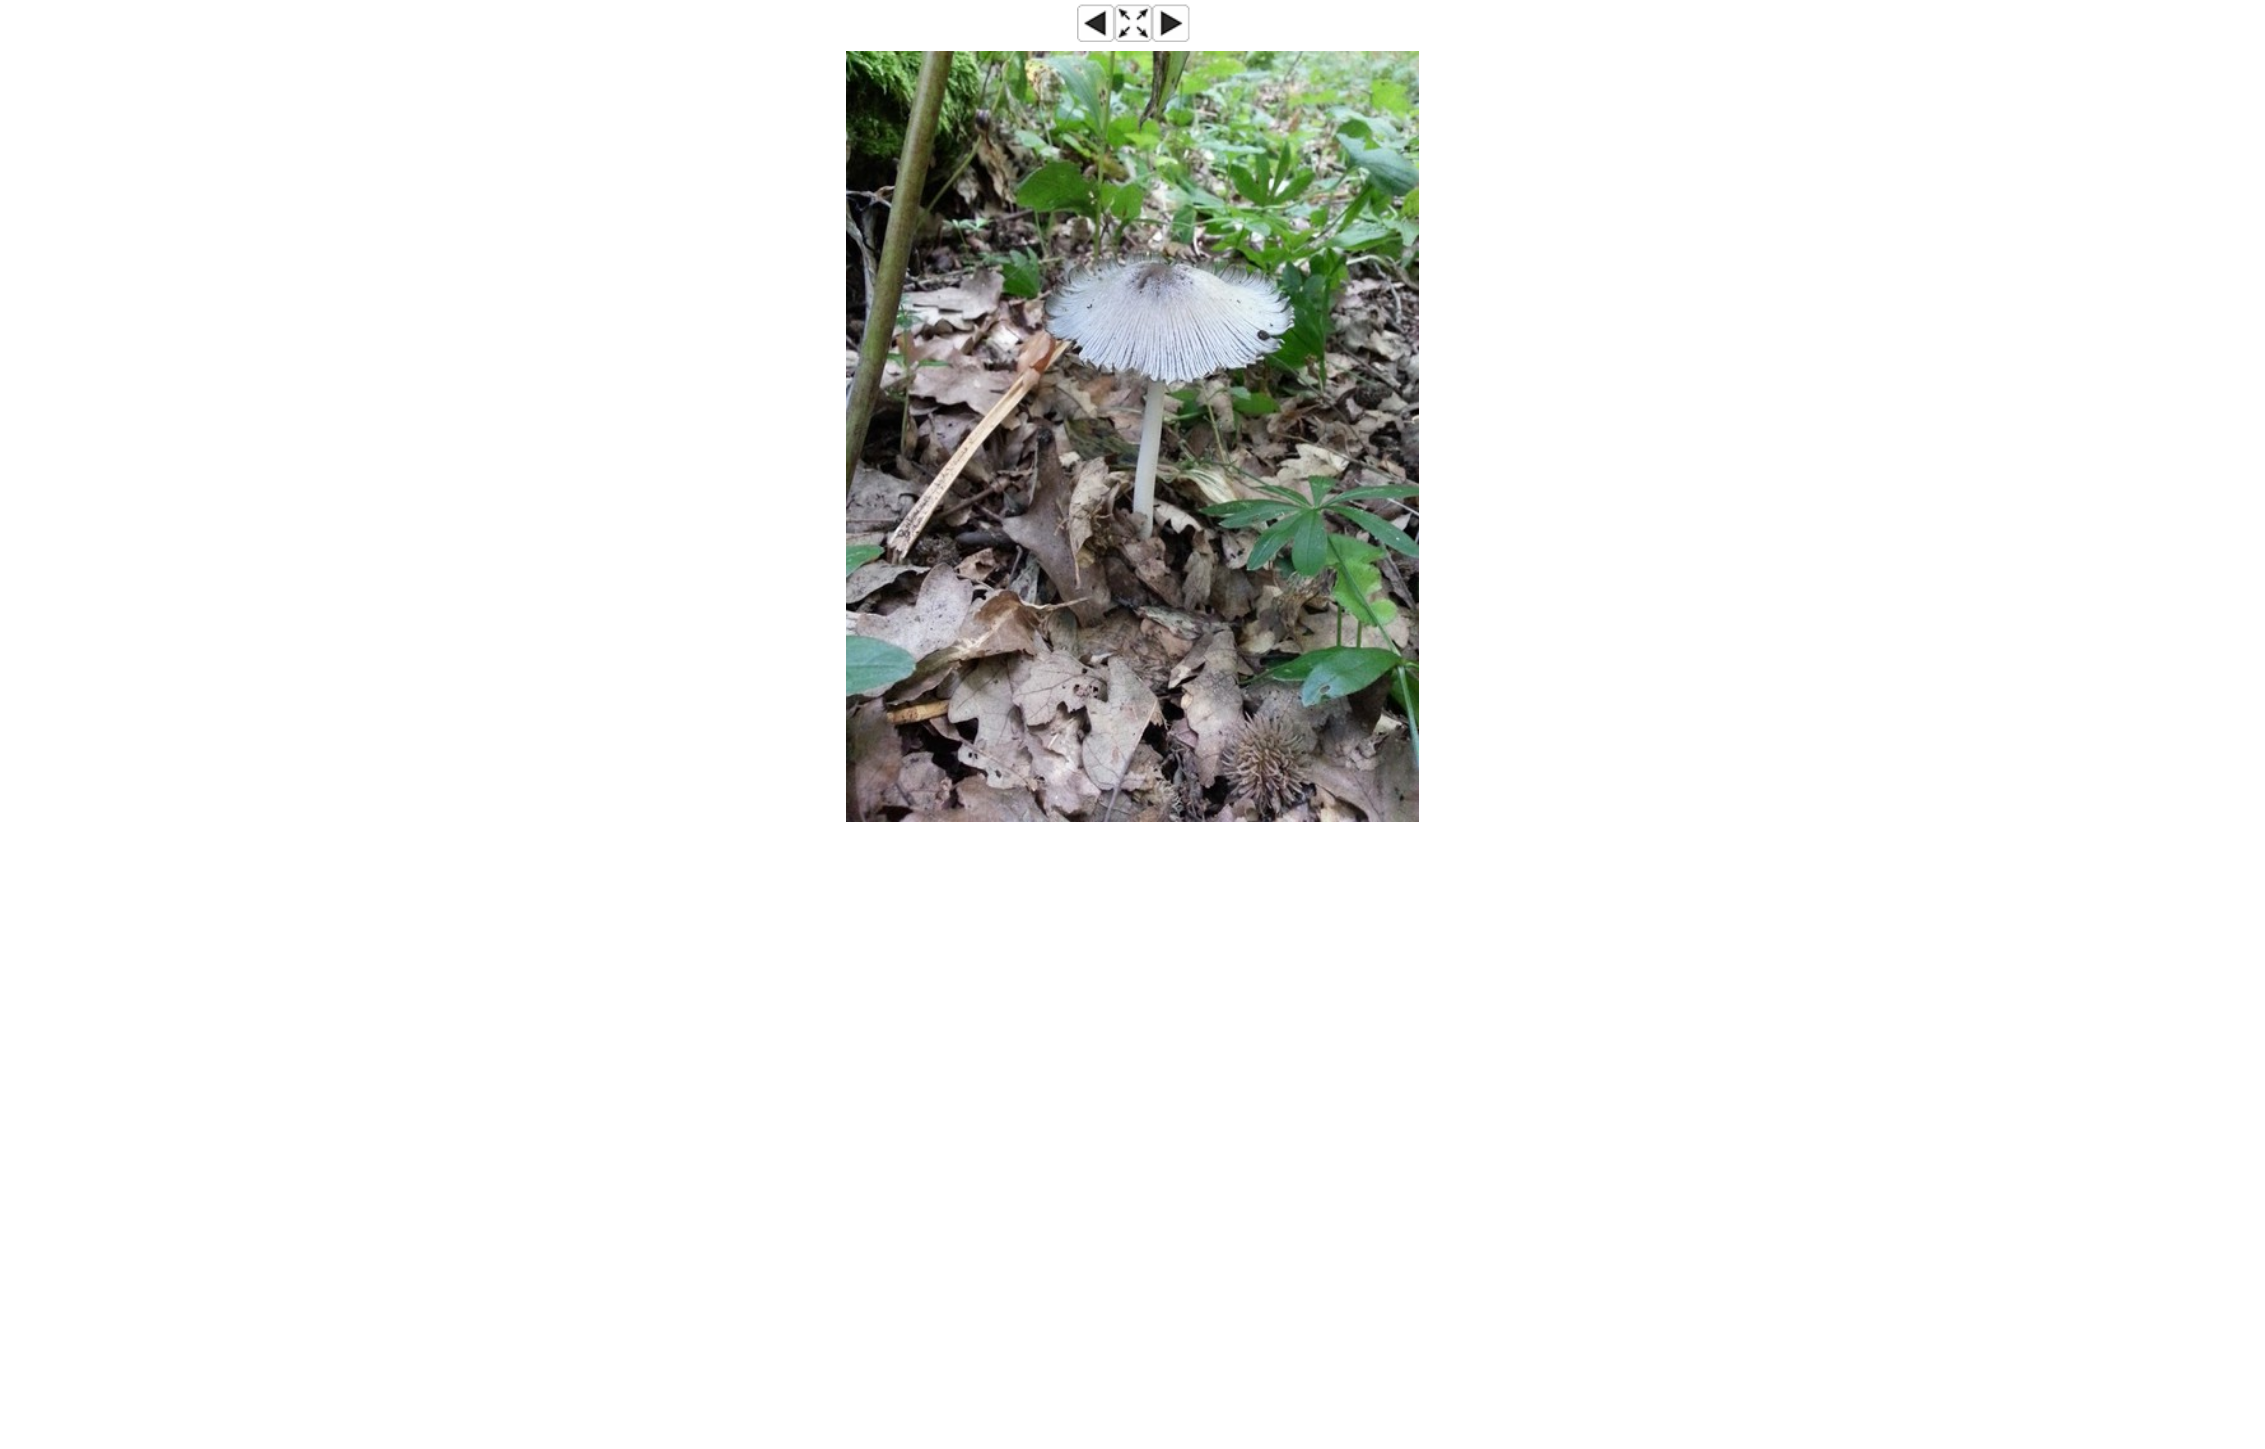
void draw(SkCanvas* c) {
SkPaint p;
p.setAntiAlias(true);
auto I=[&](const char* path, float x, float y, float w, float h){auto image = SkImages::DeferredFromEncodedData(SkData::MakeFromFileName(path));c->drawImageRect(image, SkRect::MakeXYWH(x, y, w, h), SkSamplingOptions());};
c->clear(0xffffffff);
I("1.png",1077,4,38,38);
I("2.png",1114,4,38,38);
I("3.png",1152,4,38,38);
I("4.png",846,51,573,771);
}
